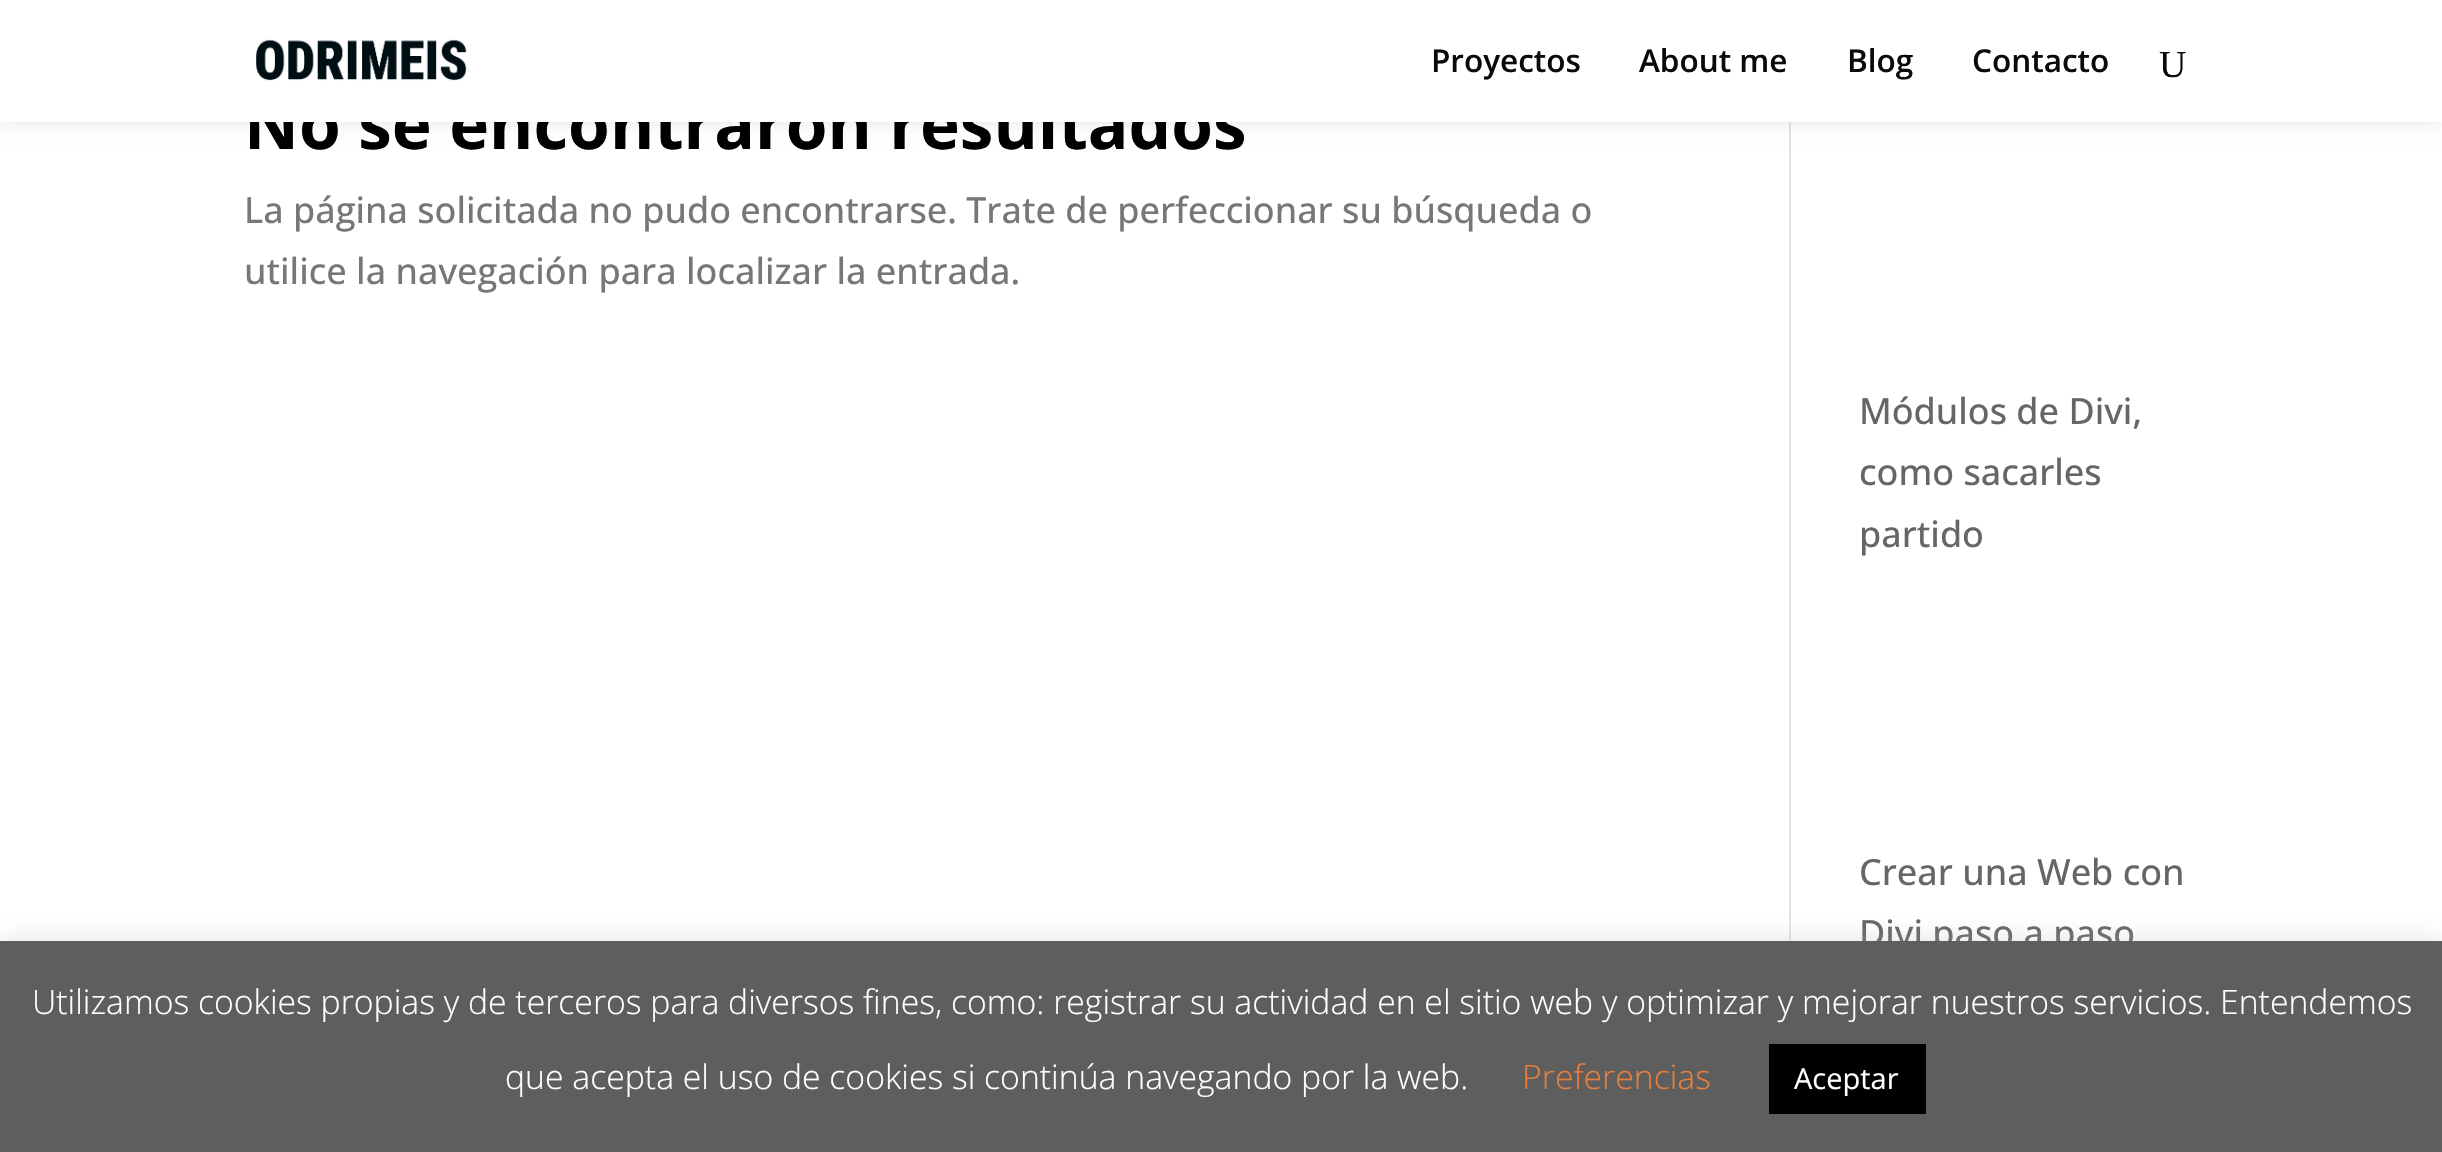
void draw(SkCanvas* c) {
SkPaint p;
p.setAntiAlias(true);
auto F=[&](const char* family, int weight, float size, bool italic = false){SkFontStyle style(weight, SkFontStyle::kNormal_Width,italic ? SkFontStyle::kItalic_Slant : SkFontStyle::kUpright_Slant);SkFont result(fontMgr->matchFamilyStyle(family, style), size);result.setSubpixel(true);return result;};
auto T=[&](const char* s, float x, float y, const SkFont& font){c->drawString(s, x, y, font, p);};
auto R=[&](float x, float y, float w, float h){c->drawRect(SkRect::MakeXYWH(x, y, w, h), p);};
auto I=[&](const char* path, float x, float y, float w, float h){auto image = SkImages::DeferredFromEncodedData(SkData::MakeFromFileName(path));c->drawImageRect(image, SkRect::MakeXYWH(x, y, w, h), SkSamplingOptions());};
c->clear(0xffffffff);
p.setColor(0xffe2e2e2);
R(1789,122,2,819);
p.setColor(0x1a000000);
p.setMaskFilter(SkMaskFilter::MakeBlur(kNormal_SkBlurStyle, 8));
c->drawRect(SkRect::MakeXYWH(0,0,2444,122),p);
p.setMaskFilter(nullptr);
auto f1 = F("Open Sans",700,67.5);
p.setColor(0xff000000);
T("No se encontraron resultados",244,149,f1);
p.setColor(0xffffffff);
R(0,0,2442,122);
I("1.png",256,39,211,42);
auto f2 = F("Open Sans",600,31.5);
p.setColor(0xff0a0a0a);
T("Proyectos",1431,72,f2);
T("About me",1639,72,f2);
T("Blog",1847,72,f2);
T("Contacto",1972,72,f2);
auto f3 = F("Liberation Serif",400,38);
T("U",2159,77,f3);
auto f4 = F("Open Sans",500,36);
p.setColor(0xff777777);
T("La página solicitada no pudo encontrarse. Trate de perfeccionar su búsqueda o",244,223,f4);
T("utilice la navegación para localizar la entrada.",244,284,f4);
p.setColor(0xff666666);
T("Módulos de Divi,",1859,424,f4);
T("como sacarles",1859,485,f4);
T("partido",1859,547,f4);
T("Crear una Web con",1859,885,f4);
T("Divi paso a paso",1859,946,f4);
p.setColor(0x4dacabab);
p.setMaskFilter(SkMaskFilter::MakeBlur(kNormal_SkBlurStyle, 11));
c->drawRect(SkRect::MakeXYWH(0,938,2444,212),p);
p.setMaskFilter(nullptr);
p.setColor(0xff5e5e5e);
R(0,941,2442,211);
auto f5 = F("Open Sans",300,33.75);
p.setColor(0xffffffff);
T("Utilizamos cookies propias y de terceros para diversos fines, como: registrar su actividad en el sitio web y optimizar y mejorar nuestros servicios. Entendemos",32,1014,f5);
T("que acepta el uso de cookies si continúa navegando por la web.",505,1089,f5);
p.setColor(0xffe87f3a);
T("Preferencias",1522,1089,f5);
p.setColor(0xff000000);
R(1769,1044,157,70);
auto f6 = F("Open Sans",400,29);
p.setColor(0xffffffff);
T("Aceptar",1794,1089,f6);
}
